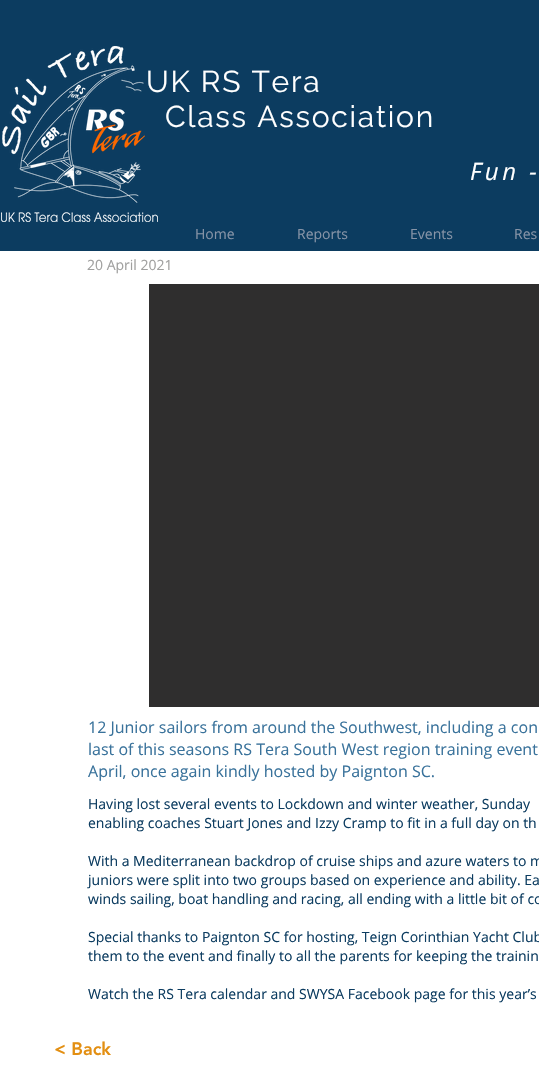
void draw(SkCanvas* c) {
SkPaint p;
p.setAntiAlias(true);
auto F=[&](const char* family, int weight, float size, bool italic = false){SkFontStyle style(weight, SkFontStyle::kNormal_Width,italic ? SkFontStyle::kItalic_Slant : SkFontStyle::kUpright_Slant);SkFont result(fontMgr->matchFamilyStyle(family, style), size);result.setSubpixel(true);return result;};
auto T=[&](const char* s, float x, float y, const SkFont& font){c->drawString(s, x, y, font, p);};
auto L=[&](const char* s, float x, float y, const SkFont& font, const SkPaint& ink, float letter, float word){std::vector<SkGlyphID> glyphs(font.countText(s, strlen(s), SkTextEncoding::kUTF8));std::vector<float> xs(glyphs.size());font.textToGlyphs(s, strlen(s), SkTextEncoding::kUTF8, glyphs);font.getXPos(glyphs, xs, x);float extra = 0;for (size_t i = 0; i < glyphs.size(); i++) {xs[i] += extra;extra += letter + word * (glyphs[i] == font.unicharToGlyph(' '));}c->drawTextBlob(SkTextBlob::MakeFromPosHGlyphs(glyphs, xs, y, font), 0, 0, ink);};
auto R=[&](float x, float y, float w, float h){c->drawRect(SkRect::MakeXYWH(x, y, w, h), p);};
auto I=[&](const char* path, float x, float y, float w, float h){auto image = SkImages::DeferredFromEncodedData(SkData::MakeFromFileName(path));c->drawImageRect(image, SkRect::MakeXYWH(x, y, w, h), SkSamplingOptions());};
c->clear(0xffffffff);
p.setColor(0xff0c3c60);
R(0,0,539,251);
I("1.png",1,46,157,176);
auto f1 = F("Raleway",400,30);
p.setColor(0xffffffff);
L("UK RS Tera",146,92,f1,p,1.75,0);
L("Class Association",165,127,f1,p,1.75,0);
auto f2 = F("Open Sans",400,24,true);
L("Fun -",470,180,f2,p,3.5,0);
auto f3 = F("Open Sans",400,14);
p.setColor(0xff8794a7);
T("Home",195,239,f3);
T("Reports",297,239,f3);
T("Events",410,239,f3);
T("Res",514,239,f3);
p.setColor(0xffa0a09f);
T("20 April 2021",87,270,f3);
p.setColor(0xff2f2e2e);
R(149,284,390,423);
auto f4 = F("Open Sans",400,16);
p.setColor(0xff39729b);
T("12 Junior sailors from around the Southwest, including a con",88,733,f4);
T("last of this seasons RS Tera South West region training event",88,755,f4);
T("April, once again kindly hosted by Paignton SC.",88,777,f4);
p.setColor(0xff0c3c60);
T("Having lost several events to Lockdown and winter weather, Sunday",88,809,f3);
T("enabling coaches Stuart Jones and Izzy Cramp to fit in a full day on th",88,828,f3);
T("With a Mediterranean backdrop of cruise ships and azure waters to m",88,866,f3);
T("juniors were split into two groups based on experience and ability. Ea",88,885,f3);
T("winds sailing, boat handling and racing, all ending with a little bit of co",88,904,f3);
T("Special thanks to Paignton SC for hosting, Teign Corinthian Yacht Club",88,942,f3);
T("them to the event and finally to all the parents for keeping the trainin",88,961,f3);
T("Watch the RS Tera calendar and SWYSA Facebook page for this year’s",88,999,f3);
auto f5 = F("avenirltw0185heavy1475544",900,18);
p.setColor(0xffe38f12);
T("< Back",54,1055,f5);
}
